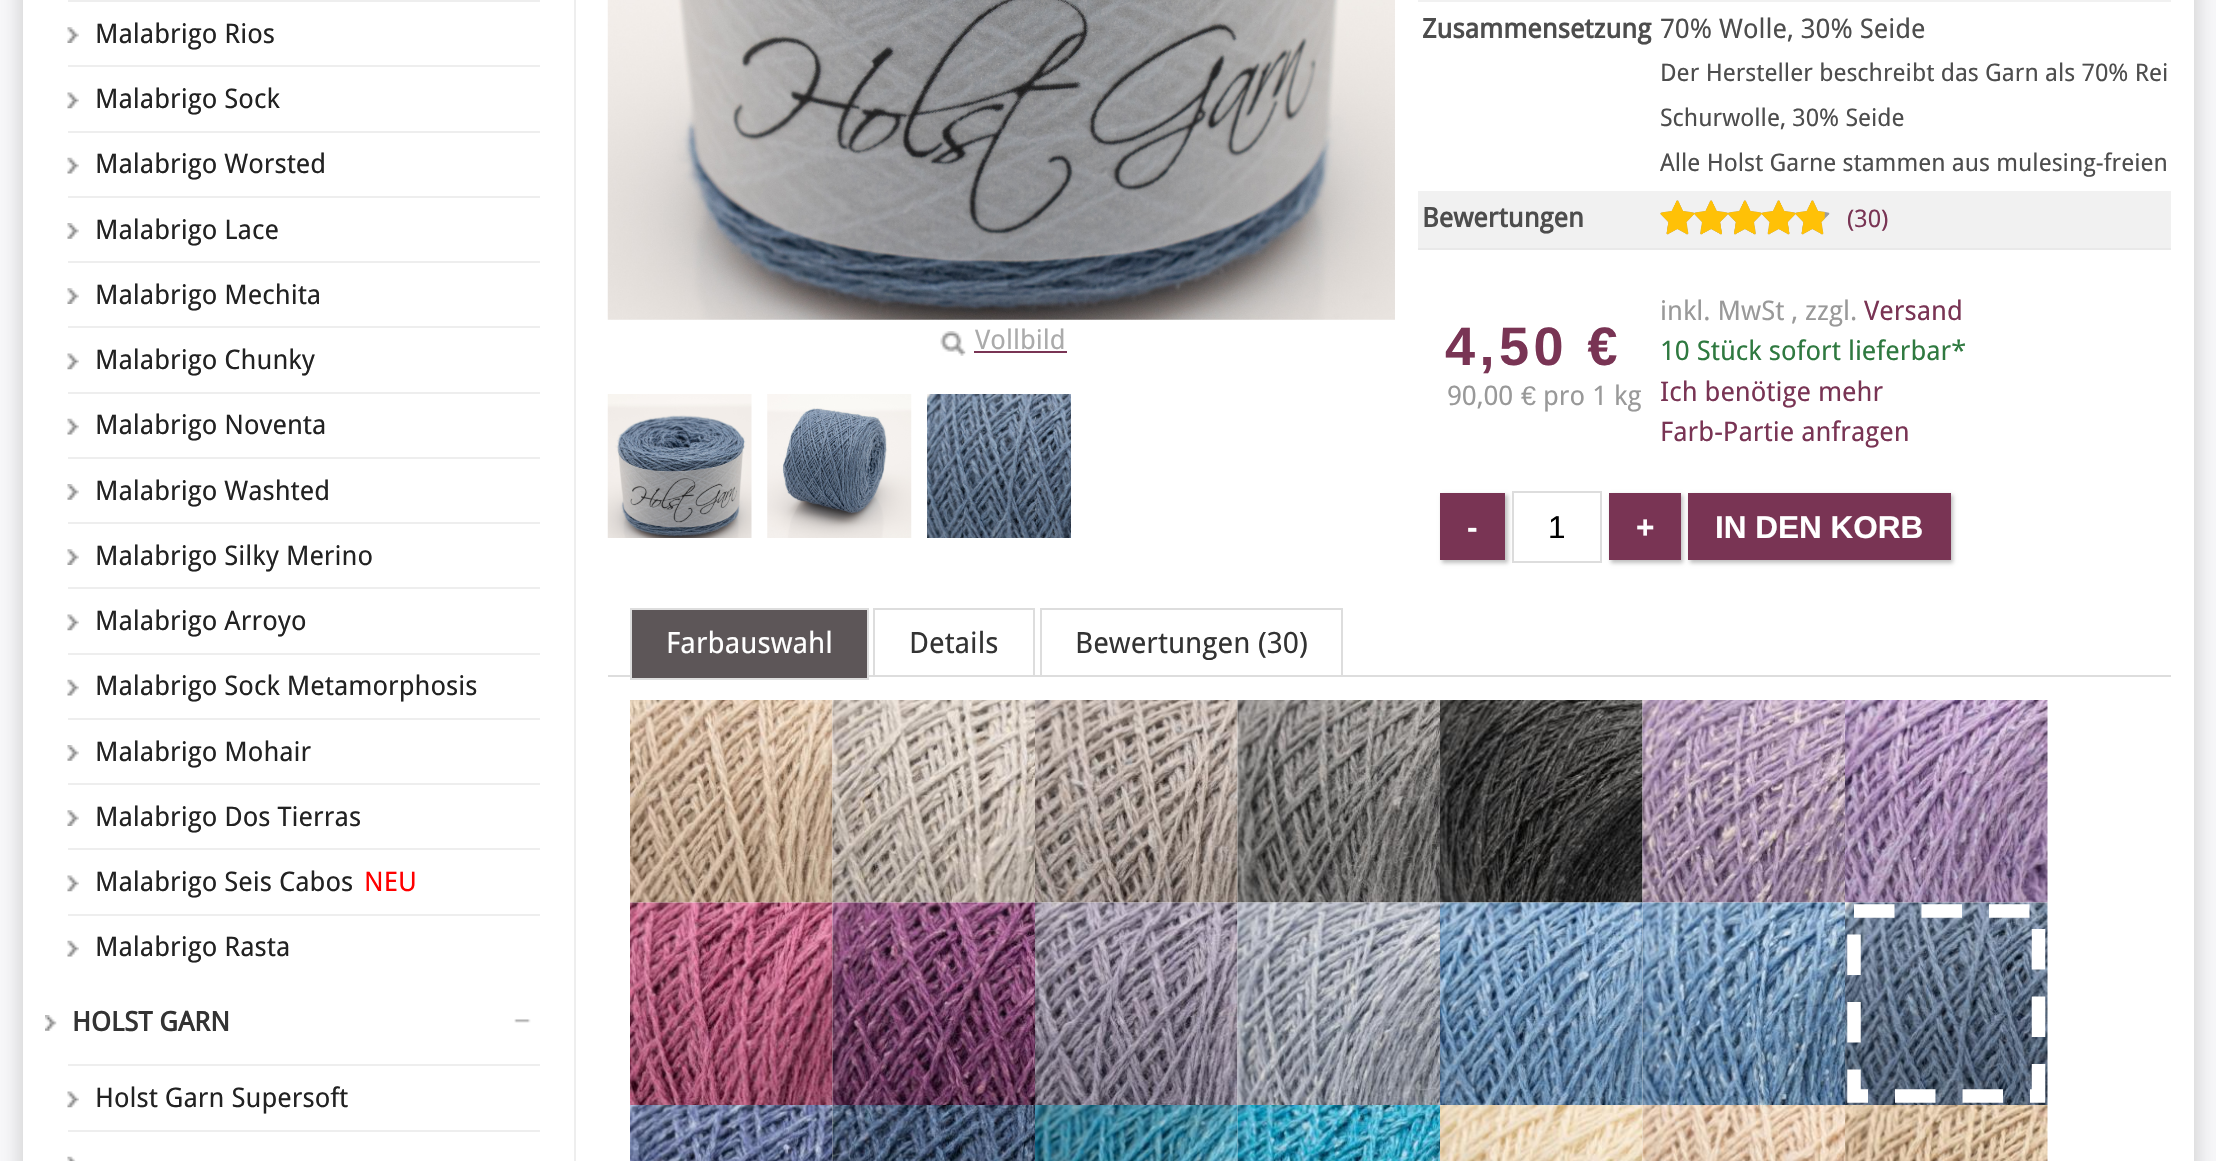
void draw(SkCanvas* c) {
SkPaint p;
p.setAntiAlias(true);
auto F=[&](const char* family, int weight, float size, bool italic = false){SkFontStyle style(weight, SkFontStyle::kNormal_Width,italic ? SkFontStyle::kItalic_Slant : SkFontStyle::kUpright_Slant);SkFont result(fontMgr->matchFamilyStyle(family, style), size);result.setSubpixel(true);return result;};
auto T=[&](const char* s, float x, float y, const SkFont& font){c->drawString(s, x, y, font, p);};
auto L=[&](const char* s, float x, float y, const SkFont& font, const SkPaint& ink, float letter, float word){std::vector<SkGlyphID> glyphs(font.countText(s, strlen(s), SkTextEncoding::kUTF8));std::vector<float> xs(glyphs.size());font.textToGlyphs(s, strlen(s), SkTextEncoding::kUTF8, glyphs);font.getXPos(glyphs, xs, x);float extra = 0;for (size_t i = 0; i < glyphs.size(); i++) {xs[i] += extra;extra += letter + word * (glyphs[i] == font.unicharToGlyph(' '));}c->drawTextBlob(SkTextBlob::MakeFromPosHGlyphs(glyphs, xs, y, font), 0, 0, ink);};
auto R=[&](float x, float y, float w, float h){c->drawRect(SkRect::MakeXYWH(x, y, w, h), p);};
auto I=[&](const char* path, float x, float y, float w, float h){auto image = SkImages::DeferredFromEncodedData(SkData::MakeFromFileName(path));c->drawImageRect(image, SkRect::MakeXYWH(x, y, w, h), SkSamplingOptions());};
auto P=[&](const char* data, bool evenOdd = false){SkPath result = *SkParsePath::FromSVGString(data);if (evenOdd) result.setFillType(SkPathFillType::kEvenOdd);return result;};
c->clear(0xfff8f8fa);
p.setColor(0x33000000);
p.setMaskFilter(SkMaskFilter::MakeBlur(kNormal_SkBlurStyle, 11));
c->drawRect(SkRect::MakeXYWH(23,-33,2171,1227),p);
p.setMaskFilter(nullptr);
p.setColor(0xffffffff);
R(23,0,2171,1161);
p.setColor(0xffeeeeee);
R(574,0,2,1161);
R(68,0,472,2);
I("1.png",67,27,12,16);
auto f1 = F("Droid Sans",400,27);
p.setColor(0xff222222);
T("Malabrigo Rios",95,43,f1);
p.setColor(0xffeeeeee);
R(68,65,472,2);
I("2.png",67,92,12,17);
p.setColor(0xff222222);
T("Malabrigo Sock",95,108,f1);
p.setColor(0xffeeeeee);
R(68,131,472,2);
I("3.png",67,157,12,17);
p.setColor(0xff222222);
T("Malabrigo Worsted",95,173,f1);
p.setColor(0xffeeeeee);
R(68,196,472,2);
I("4.png",67,223,12,16);
p.setColor(0xff222222);
T("Malabrigo Lace",95,239,f1);
p.setColor(0xffeeeeee);
R(68,261,472,2);
I("1.png",67,288,12,16);
p.setColor(0xff222222);
T("Malabrigo Mechita",95,304,f1);
p.setColor(0xffeeeeee);
R(68,326,472,2);
I("2.png",67,353,12,17);
p.setColor(0xff222222);
T("Malabrigo Chunky",95,369,f1);
p.setColor(0xffeeeeee);
R(68,392,472,2);
I("3.png",67,418,12,17);
p.setColor(0xff222222);
T("Malabrigo Noventa",95,434,f1);
p.setColor(0xffeeeeee);
R(68,457,472,2);
I("5.png",67,484,12,16);
p.setColor(0xff222222);
T("Malabrigo Washted",95,500,f1);
p.setColor(0xffeeeeee);
R(68,522,472,2);
I("1.png",67,549,12,16);
p.setColor(0xff222222);
T("Malabrigo Silky Merino",95,565,f1);
p.setColor(0xffeeeeee);
R(68,587,472,2);
I("2.png",67,614,12,17);
p.setColor(0xff222222);
T("Malabrigo Arroyo",95,630,f1);
p.setColor(0xffeeeeee);
R(68,653,472,2);
I("3.png",67,679,12,17);
p.setColor(0xff222222);
T("Malabrigo Sock Metamorphosis",95,695,f1);
p.setColor(0xffeeeeee);
R(68,718,472,2);
I("4.png",67,745,12,16);
p.setColor(0xff222222);
T("Malabrigo Mohair",95,761,f1);
p.setColor(0xffeeeeee);
R(68,783,472,2);
I("1.png",67,810,12,16);
p.setColor(0xff222222);
T("Malabrigo Dos Tierras",95,826,f1);
p.setColor(0xffeeeeee);
R(68,848,472,2);
I("2.png",67,875,12,17);
p.setColor(0xff222222);
T("Malabrigo Seis Cabos",95,891,f1);
p.setColor(0xffff0000);
T("NEU",364,891,f1);
p.setColor(0xffeeeeee);
R(68,914,472,2);
I("3.png",67,940,12,17);
p.setColor(0xff222222);
T("Malabrigo Rasta",95,956,f1);
I("6.png",45,1015,12,16);
auto f2 = F("Droid Sans",700,27);
p.setColor(0xff333333);
T("HOLST GARN",72,1031,f2);
I("7.png",514,1019,17,4);
p.setColor(0xffeeeeee);
R(68,1064,472,2);
I("2.png",67,1091,12,17);
p.setColor(0xff222222);
T("Holst Garn Supersoft",95,1107,f1);
p.setColor(0xffeeeeee);
R(68,1130,472,2);
I("8.png",67,1156,9,5);
I("9.png",607,0,788,320);
I("10.png",940,331,26,25);
p.setColor(0xffababab);
T("Vollbild",975,349,f1);
p.setColor(0xff793454);
R(974,351,93,2);
I("11.png",607,394,145,144);
I("12.png",767,394,145,144);
I("13.png",927,394,144,144);
p.setColor(0xfff1f1f1);
R(1418,0,753,248);
p.setColor(0xffe9e9e9);
R(1418,248,753,2);
p.setColor(0xffffffff);
R(1418,2,753,189);
p.setColor(0xff4d4d4d);
T("Zusammensetzung",1422,38,f2);
T("70% Wolle, 30% Seide",1660,38,f1);
auto f3 = F("Droid Sans",400,24.3);
T("Der Hersteller beschreibt das Garn als 70% Rei",1660,81,f3);
T("Schurwolle, 30% Seide",1660,126,f3);
T("Alle Holst Garne stammen aus mulesing-freien",1660,171,f3);
T("Bewertungen",1422,227,f2);
I("14.png",1660,200,170,35);
I("15.png",1660,200,165,35);
p.setColor(0xff793454);
T("(30)",1847,227,f3);
auto f4 = F("Liberation Sans",700,54);
L("4,50 €",1445,365,f4,p,4.5,0);
p.setColor(0xff999999);
T("90,00",1447,405,f1);
auto f5 = F("Liberation Sans",400,27);
T("€",1521,405,f5);
T("pro 1 kg",1543,405,f1);
T("inkl. MwSt , zzgl.",1660,320,f1);
p.setColor(0xff793454);
T("Versand",1864,320,f1);
p.setColor(0xff2f7940);
T("10 Stück sofort lieferbar*",1660,360,f1);
p.setColor(0xff793454);
T("Ich benötige mehr",1660,401,f1);
T("Farb-Partie anfragen",1660,441,f1);
p.setStroke(true);
p.setStrokeWidth(2);
p.setColor(0xffdddddd);
c->drawRect(SkRect::MakeXYWH(1513,492,88,70),p);
p.setStroke(false);
p.setColor(0x40000000);
p.setMaskFilter(SkMaskFilter::MakeBlur(kNormal_SkBlurStyle, 2));
c->drawRect(SkRect::MakeXYWH(1442,495,66,68),p);
p.setMaskFilter(nullptr);
p.setColor(0xff793454);
R(1440,493,65,67);
auto f6 = F("Liberation Sans",700,31.5);
p.setColor(0xffffffff);
T("-",1467,538,f6);
auto f7 = F("Liberation Sans",400,31.5);
p.setColor(0xff000000);
T("1",1548,538,f7);
p.setColor(0x40000000);
p.setMaskFilter(SkMaskFilter::MakeBlur(kNormal_SkBlurStyle, 2));
c->drawRect(SkRect::MakeXYWH(1611,495,72,68),p);
p.setMaskFilter(nullptr);
p.setColor(0xff793454);
R(1609,493,72,67);
p.setColor(0xffffffff);
T("+",1636,538,f6);
p.setColor(0x40000000);
p.setMaskFilter(SkMaskFilter::MakeBlur(kNormal_SkBlurStyle, 2));
c->drawRect(SkRect::MakeXYWH(1690,495,263,68),p);
p.setMaskFilter(nullptr);
p.setColor(0xff793454);
R(1688,493,263,67);
p.setColor(0xffffffff);
T("IN DEN KORB",1715,538,f6);
p.setColor(0xffdddddd);
R(608,675,1563,2);
p.setColor(0xff5d5658);
c->drawRect(SkRect::MakeXYWH(631,609,237,70),p);
p.setStroke(true);
p.setColor(0xffdddddd);
c->drawRect(SkRect::MakeXYWH(631,609,237,70),p);
auto f8 = F("Droid Sans",400,29.25);
p.setStroke(false);
p.setColor(0xffffffff);
T("Farbauswahl",666,653,f8);
p.setStroke(true);
p.setColor(0xffdddddd);
c->drawRect(SkRect::MakeXYWH(874,609,160,67),p);
p.setStroke(false);
p.setColor(0xff333333);
T("Details",909,653,f8);
p.setStroke(true);
p.setColor(0xffdddddd);
c->drawRect(SkRect::MakeXYWH(1041,609,301,67),p);
p.setStroke(false);
p.setColor(0xff333333);
T("Bewertungen (30)",1075,653,f8);
I("16.png",630,700,203,203);
I("17.png",832,700,203,203);
I("18.png",1035,700,203,203);
I("19.png",1237,700,203,203);
I("20.png",1440,700,203,203);
I("21.png",1642,700,203,203);
I("22.png",1845,700,203,203);
I("23.png",630,902,203,203);
I("24.png",832,902,203,203);
I("25.png",1035,902,203,203);
I("26.png",1237,902,203,203);
I("27.png",1440,902,203,203);
I("28.png",1642,902,203,203);
I("29.png",1845,902,203,203);
p.setStroke(true);
p.setStrokeWidth(13.5);
p.setColor(0xffffffff);
p.setPathEffect(SkDashPathEffect::Make({{40.5f,27}}, 0));
c->drawPath(P("M1854 911h184.5v185h-184.5z"),p);
p.setPathEffect(nullptr);
I("30.png",630,1105,203,56);
I("31.png",832,1105,203,56);
I("32.png",1035,1105,203,56);
I("33.png",1237,1105,203,56);
I("34.png",1440,1105,203,56);
I("35.png",1642,1105,203,56);
I("36.png",1845,1105,203,56);
}
